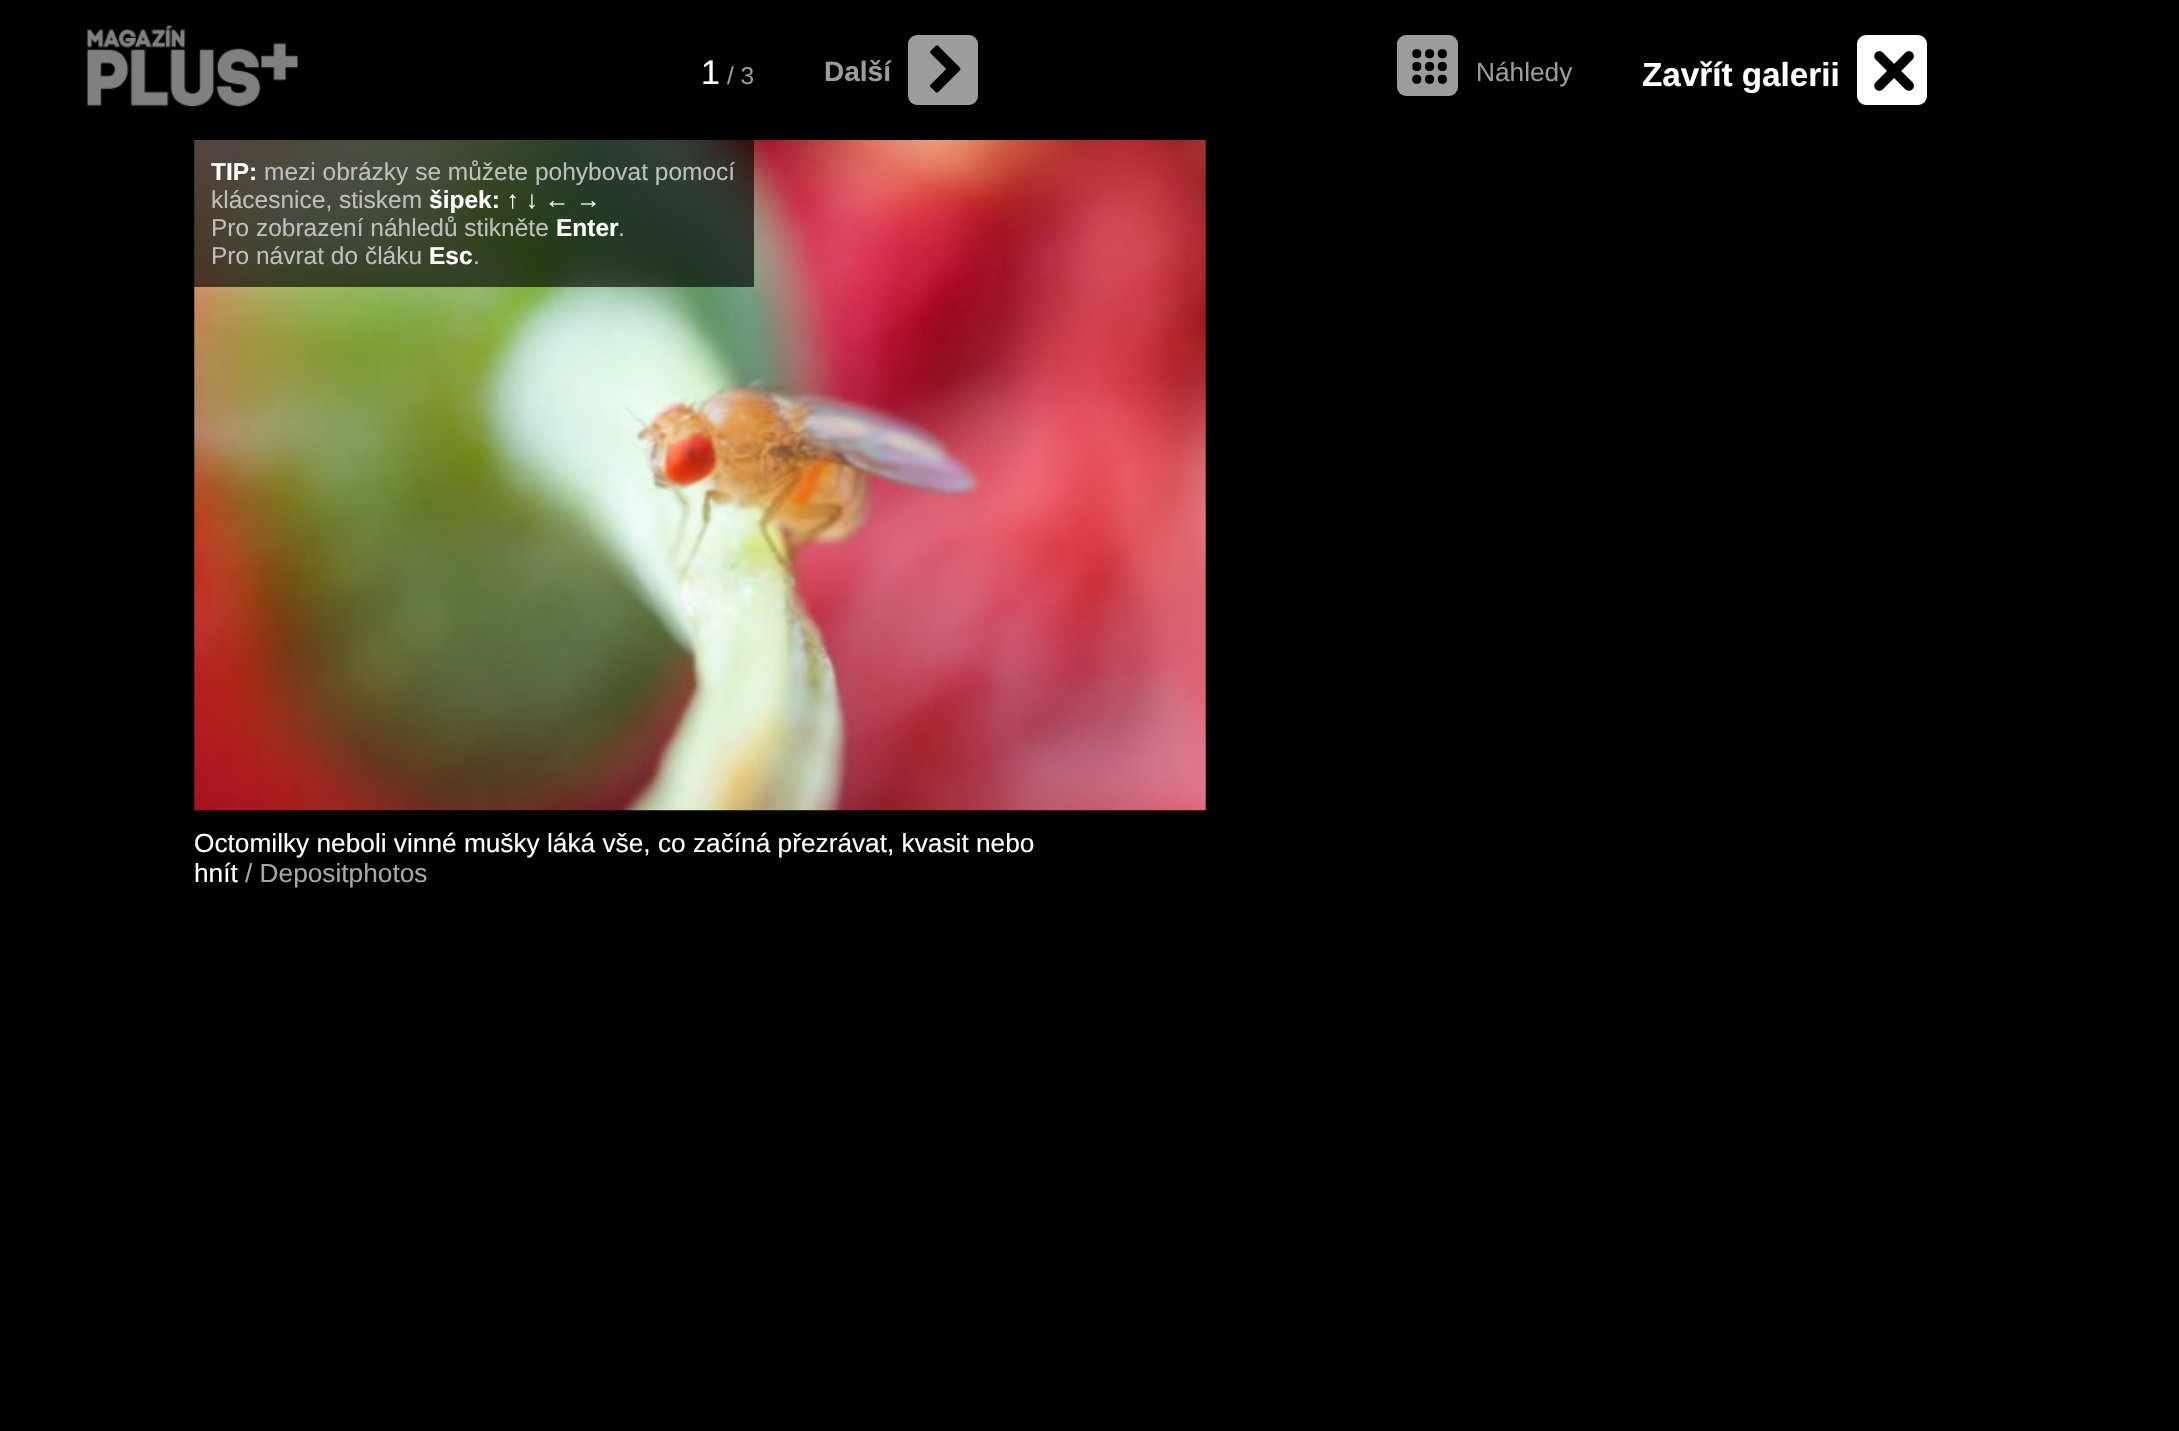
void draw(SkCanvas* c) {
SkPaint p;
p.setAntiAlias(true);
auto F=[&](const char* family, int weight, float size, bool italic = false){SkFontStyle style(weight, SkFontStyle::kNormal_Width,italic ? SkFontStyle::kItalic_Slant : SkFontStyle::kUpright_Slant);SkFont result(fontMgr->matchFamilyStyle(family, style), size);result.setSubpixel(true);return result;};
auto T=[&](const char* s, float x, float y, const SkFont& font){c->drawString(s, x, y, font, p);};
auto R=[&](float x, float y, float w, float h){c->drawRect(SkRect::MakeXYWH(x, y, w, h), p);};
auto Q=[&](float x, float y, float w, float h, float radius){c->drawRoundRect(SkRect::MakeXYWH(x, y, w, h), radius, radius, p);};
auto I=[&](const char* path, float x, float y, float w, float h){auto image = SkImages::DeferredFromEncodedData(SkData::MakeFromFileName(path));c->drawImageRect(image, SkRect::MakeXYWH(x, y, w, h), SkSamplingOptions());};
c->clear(0xff000000);
I("1.png",87,25,211,82);
auto f1 = F("Liberation Sans",400,34);
p.setColor(0xffffffff);
T("1",701,84,f1);
auto f2 = F("Liberation Sans",400,24.5);
p.setColor(0xff9c9c9c);
T("/ 3",727,84,f2);
auto f3 = F("Liberation Sans",700,28);
T("Další",824,81,f3);
Q(908,35,70,70,9);
I("2.png",930,45,31,48);
I("3.png",194,140,1012,671);
p.setColor(0xa6000000);
R(194,140,560,147);
auto f4 = F("Liberation Sans",700,24.5);
p.setColor(0xffffffff);
T("TIP:",211,180,f4);
p.setColor(0xffbebebe);
T("mezi obrázky se můžete pohybovat pomocí",264,180,f2);
T("klácesnice, stiskem",211,208,f2);
p.setColor(0xffffffff);
T("šipek: ↑ ↓ ← →",429,208,f4);
p.setColor(0xffbebebe);
T("Pro zobrazení náhledů stikněte",211,236,f2);
p.setColor(0xffffffff);
T("Enter",556,236,f4);
p.setColor(0xffbebebe);
T(".",618,236,f2);
T("Pro návrat do čláku",211,264,f2);
p.setColor(0xffffffff);
T("Esc",429,264,f4);
p.setColor(0xffbebebe);
T(".",473,264,f2);
auto f5 = F("Liberation Sans",400,26.25);
p.setColor(0xffffffff);
T("Octomilky neboli vinné mušky láká vše, co začíná přezrávat, kvasit nebo",194,852,f5);
T("hnít",194,882,f5);
p.setColor(0xffa7a7a7);
T("/ Depositphotos",245,882,f5);
p.setColor(0xff9c9c9c);
Q(1397,35,61,61,9);
I("4.png",1412,49,35,35);
T("Náhledy",1476,81,f5);
auto f6 = F("Liberation Sans",700,33.25);
p.setColor(0xffffffff);
T("Zavřít galerii",1642,86,f6);
Q(1857,35,70,70,9);
I("5.png",1874,51,40,40);
}
